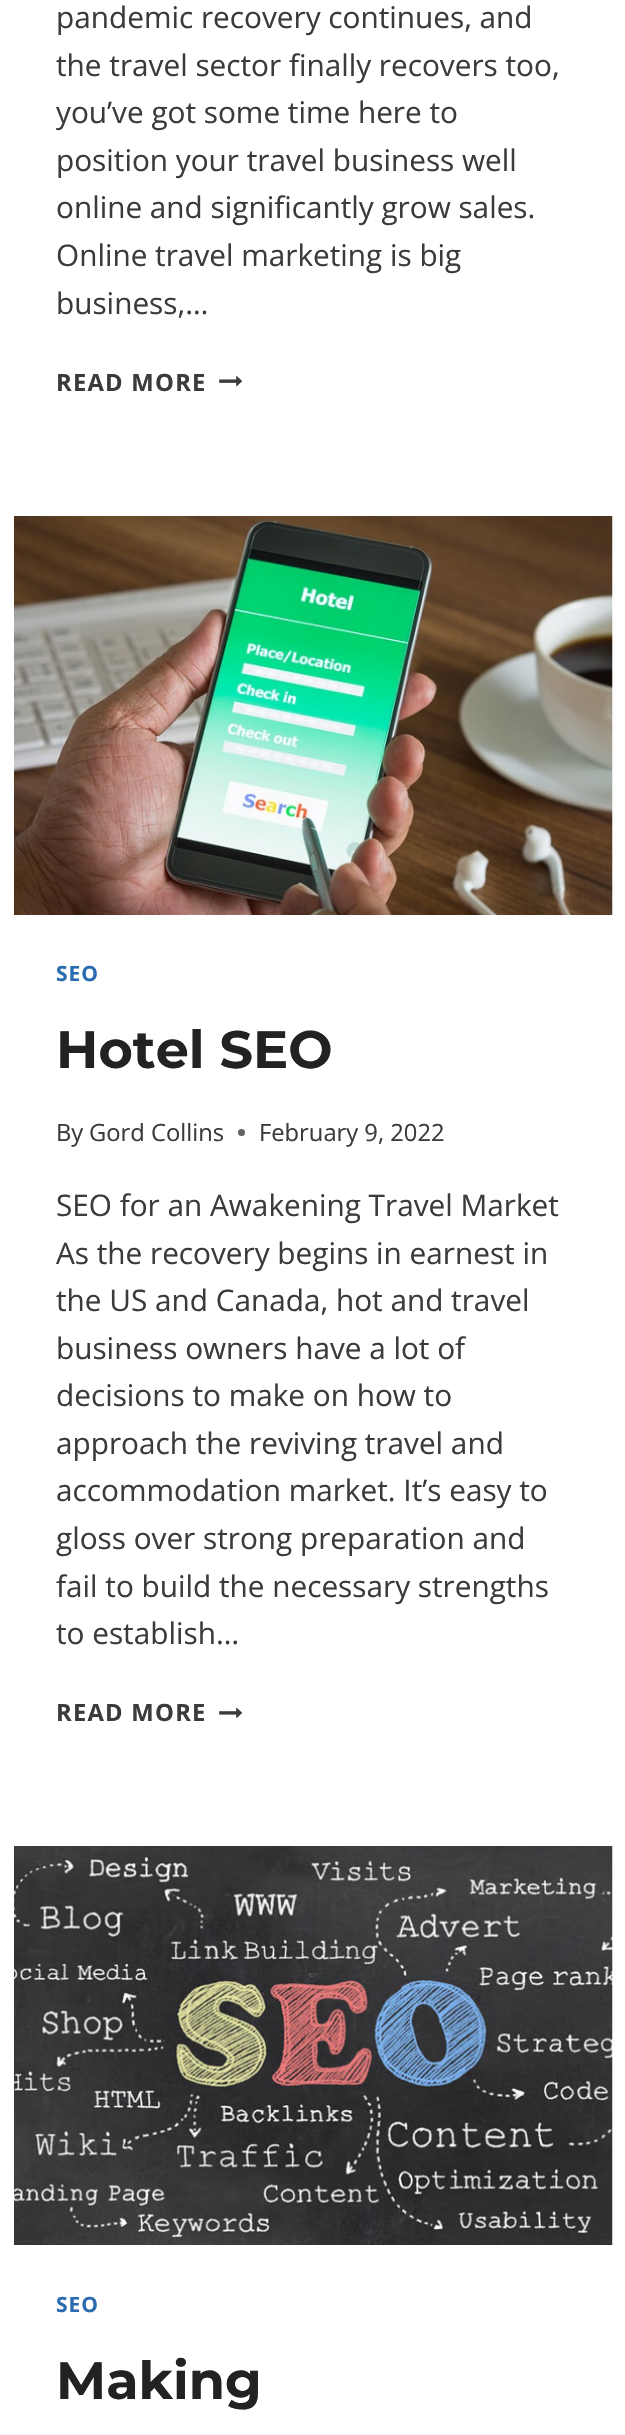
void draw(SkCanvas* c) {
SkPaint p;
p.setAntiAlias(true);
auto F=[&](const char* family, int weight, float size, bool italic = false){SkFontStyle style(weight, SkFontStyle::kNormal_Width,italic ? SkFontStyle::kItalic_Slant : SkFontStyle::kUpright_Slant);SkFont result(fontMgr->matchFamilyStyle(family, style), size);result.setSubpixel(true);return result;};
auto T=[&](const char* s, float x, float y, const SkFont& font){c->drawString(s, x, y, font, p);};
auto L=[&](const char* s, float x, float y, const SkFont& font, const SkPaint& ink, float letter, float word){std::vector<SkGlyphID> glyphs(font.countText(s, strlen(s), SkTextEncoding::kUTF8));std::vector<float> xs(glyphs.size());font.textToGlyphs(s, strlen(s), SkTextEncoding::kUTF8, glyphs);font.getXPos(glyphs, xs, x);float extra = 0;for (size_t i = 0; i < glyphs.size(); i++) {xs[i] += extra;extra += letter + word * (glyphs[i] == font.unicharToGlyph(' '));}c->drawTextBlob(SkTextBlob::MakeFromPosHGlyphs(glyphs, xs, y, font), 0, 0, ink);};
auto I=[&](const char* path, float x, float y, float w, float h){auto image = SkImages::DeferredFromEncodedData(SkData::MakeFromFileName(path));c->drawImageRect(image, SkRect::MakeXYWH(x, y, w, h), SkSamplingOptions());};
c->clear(0xffffffff);
auto f1 = F("Open Sans",400,29.75);
p.setColor(0xff3b3b3b);
T("pandemic recovery continues, and",56,28,f1);
T("the travel sector finally recovers too,",56,76,f1);
T("you’ve got some time here to",56,123,f1);
T("position your travel business well",56,171,f1);
T("online and significantly grow sales.",56,218,f1);
T("Online travel marketing is big",56,266,f1);
T("business,…",56,314,f1);
auto f2 = F("Open Sans",700,23.75);
L("READ MORE",56,391,f2,p,1.25,0);
I("1.png",219,376,23,11);
I("2.png",14,516,599,399);
auto f3 = F("Open Sans",700,21);
p.setColor(0xff2b6cb0);
L("SEO",56,981,f3,p,1,0);
auto f4 = F("Montserrat",700,52.5);
p.setColor(0xff222222);
T("Hotel SEO",56,1068,f4);
auto f5 = F("Open Sans",400,23.75);
p.setColor(0xff3b3b3b);
T("By",56,1141,f5);
T("Gord Collins",89,1141,f5);
p.setColor(0xff626262);
c->drawCircle(241.5,1132.5,3.5,p);
p.setColor(0xff3b3b3b);
T("February 9, 2022",259,1141,f5);
T("SEO for an Awakening Travel Market",56,1216,f1);
T("As the recovery begins in earnest in",56,1264,f1);
T("the US and Canada, hot and travel",56,1311,f1);
T("business owners have a lot of",56,1359,f1);
T("decisions to make on how to",56,1406,f1);
T("approach the reviving travel and",56,1454,f1);
T("accommodation market. It’s easy to",56,1501,f1);
T("gloss over strong preparation and",56,1549,f1);
T("fail to build the necessary strengths",56,1597,f1);
T("to establish…",56,1644,f1);
L("READ MORE",56,1721,f2,p,1.25,0);
I("3.png",219,1707,23,11);
I("4.png",14,1846,599,399);
p.setColor(0xff2b6cb0);
L("SEO",56,2312,f3,p,1,0);
p.setColor(0xff222222);
T("Making",56,2399,f4);
}
